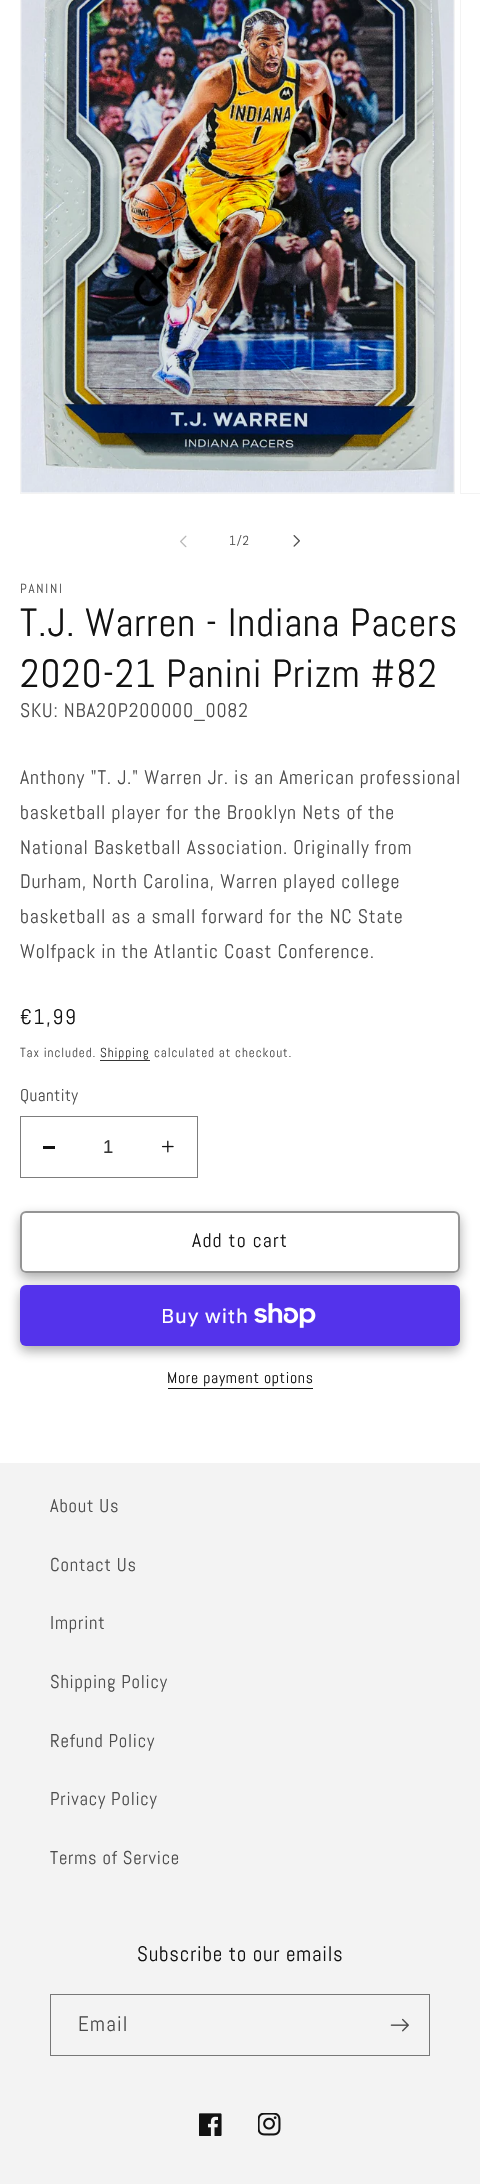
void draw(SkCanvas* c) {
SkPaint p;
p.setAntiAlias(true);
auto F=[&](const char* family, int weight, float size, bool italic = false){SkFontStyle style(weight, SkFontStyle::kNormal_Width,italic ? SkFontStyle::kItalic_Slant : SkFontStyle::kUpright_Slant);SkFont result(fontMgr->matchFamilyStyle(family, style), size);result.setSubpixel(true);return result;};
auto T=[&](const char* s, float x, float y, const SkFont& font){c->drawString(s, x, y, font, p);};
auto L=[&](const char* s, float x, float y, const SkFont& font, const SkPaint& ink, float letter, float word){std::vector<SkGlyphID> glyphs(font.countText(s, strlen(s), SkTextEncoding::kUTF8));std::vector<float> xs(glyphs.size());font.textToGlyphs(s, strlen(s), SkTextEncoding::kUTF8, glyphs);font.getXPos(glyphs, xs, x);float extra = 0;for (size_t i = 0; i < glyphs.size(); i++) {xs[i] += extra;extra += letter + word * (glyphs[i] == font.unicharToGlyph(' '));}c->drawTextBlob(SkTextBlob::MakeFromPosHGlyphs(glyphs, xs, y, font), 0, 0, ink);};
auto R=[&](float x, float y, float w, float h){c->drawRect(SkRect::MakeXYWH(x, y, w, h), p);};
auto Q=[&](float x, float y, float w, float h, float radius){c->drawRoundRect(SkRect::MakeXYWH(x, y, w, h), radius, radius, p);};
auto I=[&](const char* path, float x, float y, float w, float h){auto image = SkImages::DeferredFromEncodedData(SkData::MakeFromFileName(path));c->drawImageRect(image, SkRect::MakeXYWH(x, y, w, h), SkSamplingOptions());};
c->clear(0xffffffff);
p.setStroke(true);
p.setStrokeWidth(1);
p.setColor(0xfff3f3f3);
c->drawRect(SkRect::MakeXYWH(20.5,-.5,434,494),p);
I("1.png",21,0,433,493);
c->drawRect(SkRect::MakeXYWH(460.5,-.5,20,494),p);
I("2.png",180,535,7,13);
auto f1 = F("Abel",400,13.1);
p.setStroke(false);
p.setColor(0xff4d4d4d);
L("1/2",229,545,f1,p,.9,0);
I("3.png",293,535,7,12);
L("PANINI",20,593,f1,p,1.75,0);
auto f2 = F("Abel",400,39.4);
p.setColor(0xff121212);
L("T.J. Warren - Indiana Pacers",20,636,f2,p,.8,0);
L("2020-21 Panini Prizm #82",20,687,f2,p,.8,0);
auto f3 = F("Abel",400,19.7);
p.setColor(0xff4d4d4d);
L("SKU: NBA20P200000_0082",20,717,f3,p,.8,0);
L("Anthony \"T. J.\" Warren Jr. is an American professional",20,784,f3,p,.8,0);
L("basketball player for the Brooklyn Nets of the",20,819,f3,p,.8,0);
L("National Basketball Association. Originally from",20,854,f3,p,.8,0);
L("Durham, North Carolina, Warren played college",20,888,f3,p,.8,0);
L("basketball as a small forward for the NC State",20,923,f3,p,.8,0);
L("Wolfpack in the Atlantic Coast Conference.",20,958,f3,p,.8,0);
auto f4 = F("Abel",400,21);
p.setColor(0xff121212);
L("€1,99",20,1024,f4,p,1.75,0);
p.setColor(0xff4d4d4d);
L("Tax included.",20,1057,f1,p,.9,0);
p.setColor(0xff363636);
L("Shipping",100,1057,f1,p,.9,0);
R(100,1060,50,1);
p.setColor(0xff4d4d4d);
L("calculated at checkout.",154,1057,f1,p,.9,0);
auto f5 = F("Abel",400,17);
L("Quantity",20,1101,f5,p,.5,0);
p.setColor(0xff121212);
R(43,1146,12,3);
I("4.png",161,1140,13,13);
p.setStroke(true);
p.setColor(0xff7d7d7d);
c->drawRect(SkRect::MakeXYWH(20.5,1116.5,177,61),p);
auto f6 = F("Liberation Sans",400,18.5);
p.setStroke(false);
p.setColor(0xff363636);
T("1",103,1153,f6);
p.setColor(0x59121212);
p.setMaskFilter(SkMaskFilter::MakeBlur(kNormal_SkBlurStyle, 6));
c->drawRoundRect(SkRect::MakeXYWH(20,1216,440,62),6,6,p);
p.setMaskFilter(nullptr);
p.setMaskFilter(SkMaskFilter::MakeBlur(kNormal_SkBlurStyle, 6));
c->drawRoundRect(SkRect::MakeXYWH(20,1290,440,61),6,6,p);
p.setMaskFilter(nullptr);
p.setColor(0xffffffff);
Q(20,1211,440,62,6);
p.setStroke(true);
c->drawRoundRect(SkRect::MakeXYWH(20.5,1211.5,439,61),5.5,5.5,p);
p.setStrokeWidth(2);
p.setColor(0xff949494);
c->drawRoundRect(SkRect::MakeXYWH(21,1212,438,60),5,5,p);
p.setStroke(false);
p.setColor(0xff121212);
L("Add to cart",192,1247,f3,p,1.25,0);
p.setColor(0xff5433eb);
Q(20,1285,440,61,6);
auto f7 = F("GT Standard",400,20);
p.setColor(0xffffffff);
L("Buy with",161,1323,f7,p,.8,0);
I("5.png",254,1303,62,25);
auto f8 = F("Abel",400,15.75);
p.setColor(0xff121212);
L("More payment options",167,1383,f8,p,.7,0);
R(168,1388,145,1);
p.setColor(0xfff3f3f3);
R(0,1463,480,721);
auto f9 = F("Abel",400,18.5);
p.setColor(0xff4d4d4d);
L("About Us",50,1512,f9,p,.8,0);
L("Contact Us",50,1571,f9,p,.8,0);
L("Imprint",50,1629,f9,p,.8,0);
L("Shipping Policy",50,1688,f9,p,.8,0);
L("Refund Policy",50,1747,f9,p,.8,0);
L("Privacy Policy",50,1805,f9,p,.8,0);
L("Terms of Service",50,1864,f9,p,.8,0);
p.setColor(0xff121212);
L("Subscribe to our emails",137,1961,f4,p,.8,0);
p.setStroke(true);
p.setStrokeWidth(1);
p.setColor(0xff777777);
c->drawRect(SkRect::MakeXYWH(50.5,1994.5,379,61),p);
p.setStroke(false);
p.setColor(0xff4d4d4d);
L("Email",78,2031,f4,p,1.25,0);
I("6.png",390,2018,19,14);
I("7.png",199,2113,23,23);
I("8.png",258,2113,23,23);
}
